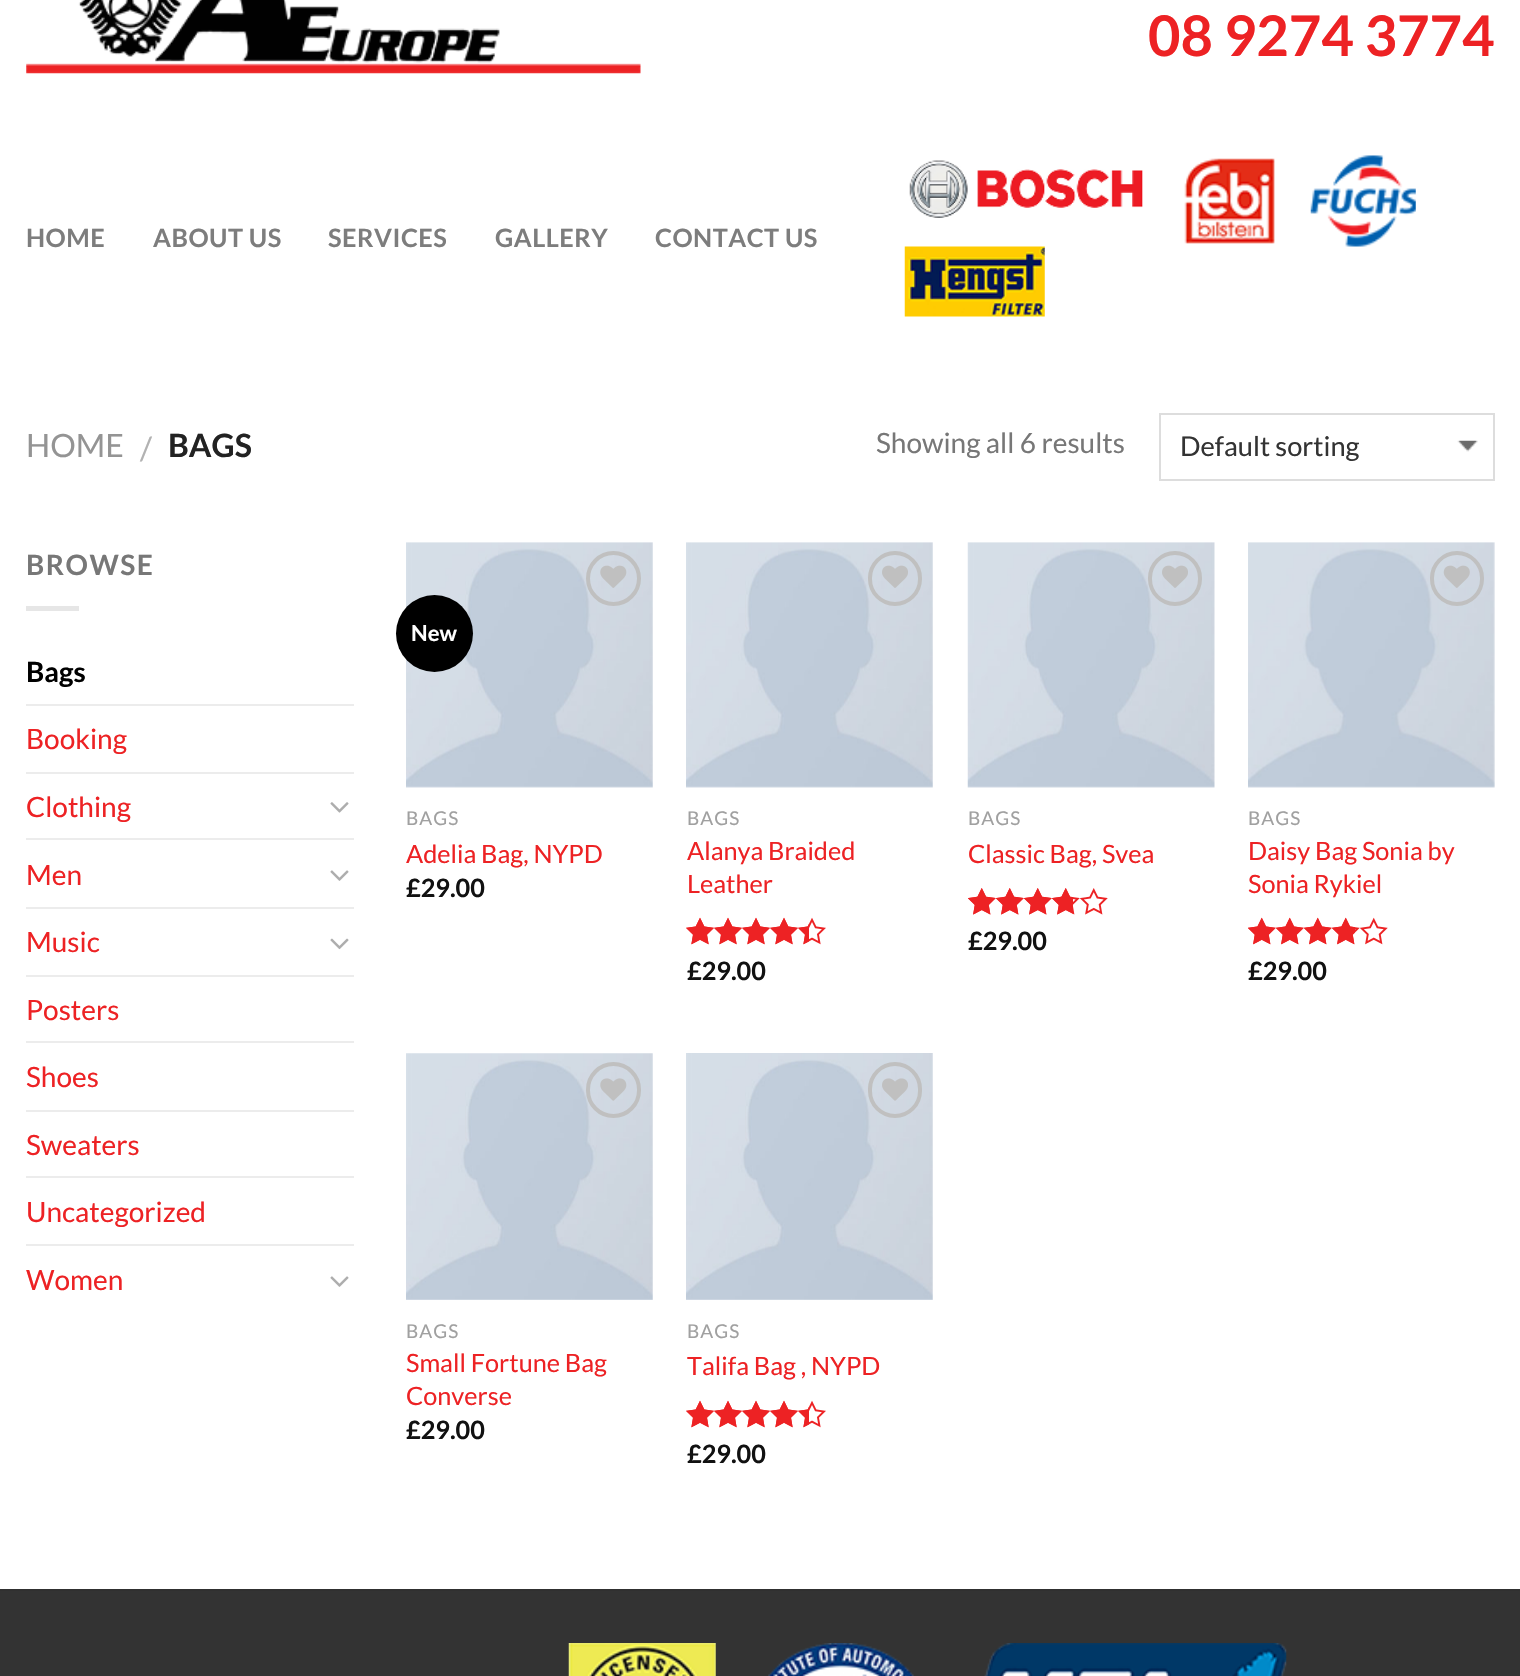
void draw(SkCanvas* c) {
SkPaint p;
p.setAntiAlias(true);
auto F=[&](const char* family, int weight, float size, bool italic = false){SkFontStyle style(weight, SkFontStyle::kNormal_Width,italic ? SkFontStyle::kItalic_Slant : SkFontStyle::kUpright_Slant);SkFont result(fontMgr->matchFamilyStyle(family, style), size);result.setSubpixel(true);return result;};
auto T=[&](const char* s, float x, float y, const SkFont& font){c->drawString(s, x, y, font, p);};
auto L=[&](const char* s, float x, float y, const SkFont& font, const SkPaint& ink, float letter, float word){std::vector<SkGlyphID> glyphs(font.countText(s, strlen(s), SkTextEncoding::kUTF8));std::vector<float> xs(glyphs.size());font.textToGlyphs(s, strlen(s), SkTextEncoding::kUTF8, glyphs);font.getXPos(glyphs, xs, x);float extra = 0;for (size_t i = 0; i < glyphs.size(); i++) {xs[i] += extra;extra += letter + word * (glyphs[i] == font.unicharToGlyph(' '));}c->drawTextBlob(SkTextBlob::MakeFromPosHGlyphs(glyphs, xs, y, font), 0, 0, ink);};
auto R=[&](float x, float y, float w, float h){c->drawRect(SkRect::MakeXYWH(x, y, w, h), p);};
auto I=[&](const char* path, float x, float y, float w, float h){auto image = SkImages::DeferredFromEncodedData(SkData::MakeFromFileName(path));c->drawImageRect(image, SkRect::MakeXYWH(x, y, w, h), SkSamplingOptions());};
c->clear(0xffffffff);
I("1.png",26,0,615,74);
auto f1 = F("Lato",700,56);
p.setColor(0xffed2224);
T("08 9274 3774",1148,56,f1);
auto f2 = F("Lato",700,25.25);
p.setColor(0xff7d7d7d);
L("HOME",26,247,f2,p,.5,0);
L("ABOUT US",153,247,f2,p,.5,0);
L("SERVICES",328,247,f2,p,.5,0);
L("GALLERY",495,247,f2,p,.5,0);
L("CONTACT US",655,247,f2,p,.5,0);
I("2.png",909,160,234,58);
I("3.png",1184,158,91,86);
I("4.png",1310,155,106,92);
I("5.png",904,246,141,71);
auto f3 = F("Lato",400,32);
p.setColor(0xff949494);
T("HOME",26,457,f3);
p.setColor(0xffb2b2b2);
T("/",140,460,f3);
auto f4 = F("Lato",700,32);
p.setColor(0xff222222);
T("BAGS",168,457,f4);
auto f5 = F("Lato",400,28);
p.setColor(0xff777777);
T("Showing all 6 results",876,453,f5);
I("6.png",1457,440,21,12);
p.setStroke(true);
p.setStrokeWidth(2);
p.setColor(0xffdddddd);
c->drawRect(SkRect::MakeXYWH(1160,414,334,66),p);
auto f6 = F("Lato",400,27.25);
p.setStroke(false);
p.setColor(0xff333333);
T("Default sorting",1180,456,f6);
auto f7 = F("Lato",700,28);
p.setColor(0xff777777);
L("BROWSE",26,575,f7,p,1.5,0);
p.setColor(0xffe6e6e6);
R(26,606,53,5);
p.setColor(0xff000000);
T("Bags",26,682,f7);
p.setColor(0xffececec);
R(26,704,328,2);
p.setColor(0xffed2224);
T("Booking",26,749,f5);
p.setColor(0xffececec);
R(26,772,328,2);
p.setColor(0xffed2224);
T("Clothing",26,817,f5);
I("7.png",330,802,19,11);
p.setColor(0xffececec);
R(26,838,328,2);
p.setColor(0xffed2224);
T("Men",26,885,f5);
I("8.png",330,870,19,11);
p.setColor(0xffececec);
R(26,907,328,2);
p.setColor(0xffed2224);
T("Music",26,952,f5);
I("9.png",330,938,19,12);
p.setColor(0xffececec);
R(26,975,328,2);
p.setColor(0xffed2224);
T("Posters",26,1020,f5);
p.setColor(0xffececec);
R(26,1041,328,2);
p.setColor(0xffed2224);
T("Shoes",26,1087,f5);
p.setColor(0xffececec);
R(26,1110,328,2);
p.setColor(0xffed2224);
T("Sweaters",26,1155,f5);
p.setColor(0xffececec);
R(26,1176,328,2);
p.setColor(0xffed2224);
T("Uncategorized",26,1222,f5);
p.setColor(0xffececec);
R(26,1244,328,2);
p.setColor(0xffed2224);
T("Women",26,1290,f5);
I("8.png",330,1276,19,11);
I("10.png",406,542,247,246);
p.setColor(0xff000000);
c->drawCircle(434.5,633.5,38.5,p);
auto f8 = F("Lato",700,22);
p.setColor(0xffffffff);
T("New",411,641,f8);
p.setStroke(true);
p.setStrokeWidth(4);
p.setColor(0xffc0c0c0);
c->drawCircle(613.5,578.5,25.5,p);
I("11.png",600,565,27,23);
auto f9 = F("Lato",400,19);
p.setStroke(false);
p.setColor(0xffa0a0a0);
L("BAGS",406,825,f9,p,1,0);
auto f10 = F("Lato",400,25.25);
p.setColor(0xffed2224);
T("Adelia Bag, NYPD",406,863,f10);
p.setColor(0xff111111);
T("£29.00",406,897,f2);
I("10.png",686,542,247,246);
p.setStroke(true);
p.setColor(0xffc0c0c0);
c->drawRoundRect(SkRect::MakeXYWH(870,553,50,51),25,25,p);
I("12.png",882,565,26,23);
p.setStroke(false);
p.setColor(0xffa0a0a0);
L("BAGS",687,825,f9,p,1,0);
p.setColor(0xffed2224);
T("Alanya Braided",687,860,f10);
T("Leather",687,893,f10);
I("13.png",686,917,140,28);
I("14.png",686,917,123,28);
p.setColor(0xff111111);
T("£29.00",687,980,f2);
I("15.png",967,542,248,246);
p.setStroke(true);
p.setColor(0xffc0c0c0);
c->drawRoundRect(SkRect::MakeXYWH(1150,553,50,51),25,25,p);
I("16.png",1162,565,26,23);
p.setStroke(false);
p.setColor(0xffa0a0a0);
L("BAGS",968,825,f9,p,1,0);
p.setColor(0xffed2224);
T("Classic Bag, Svea",968,863,f10);
I("17.png",968,888,140,27);
I("18.png",968,888,105,27);
p.setColor(0xff111111);
T("£29.00",968,950,f2);
I("19.png",1248,542,247,246);
p.setStroke(true);
p.setColor(0xffc0c0c0);
c->drawRoundRect(SkRect::MakeXYWH(1432,553,50,51),25,25,p);
I("20.png",1443,565,27,23);
p.setStroke(false);
p.setColor(0xffa0a0a0);
L("BAGS",1248,825,f9,p,1,0);
p.setColor(0xffed2224);
T("Daisy Bag Sonia by",1248,860,f10);
T("Sonia Rykiel",1248,893,f10);
I("21.png",1248,917,140,28);
I("22.png",1248,917,107,28);
p.setColor(0xff111111);
T("£29.00",1248,980,f2);
I("23.png",406,1053,247,247);
p.setStroke(true);
p.setColor(0xffc0c0c0);
c->drawRoundRect(SkRect::MakeXYWH(588,1064,51,52),25.5,25.5,p);
I("24.png",600,1078,27,23);
p.setStroke(false);
p.setColor(0xffa0a0a0);
L("BAGS",406,1338,f9,p,1,0);
p.setColor(0xffed2224);
T("Small Fortune Bag",406,1372,f10);
T("Converse",406,1405,f10);
p.setColor(0xff111111);
T("£29.00",406,1439,f2);
I("25.png",686,1053,247,247);
p.setStroke(true);
p.setColor(0xffc0c0c0);
c->drawRoundRect(SkRect::MakeXYWH(870,1064,50,52),25,25,p);
I("26.png",882,1078,26,23);
p.setStroke(false);
p.setColor(0xffa0a0a0);
L("BAGS",687,1338,f9,p,1,0);
p.setColor(0xffed2224);
T("Talifa Bag , NYPD",687,1375,f10);
I("13.png",686,1400,140,28);
I("14.png",686,1400,123,28);
p.setColor(0xff111111);
T("£29.00",687,1463,f2);
p.setColor(0xff333333);
R(0,1591,1520,85);
p.setColor(0xff303030);
R(0,1589,1520,2);
I("27.png",568,1643,148,33);
I("28.png",768,1643,146,33);
I("29.png",984,1643,303,33);
}
